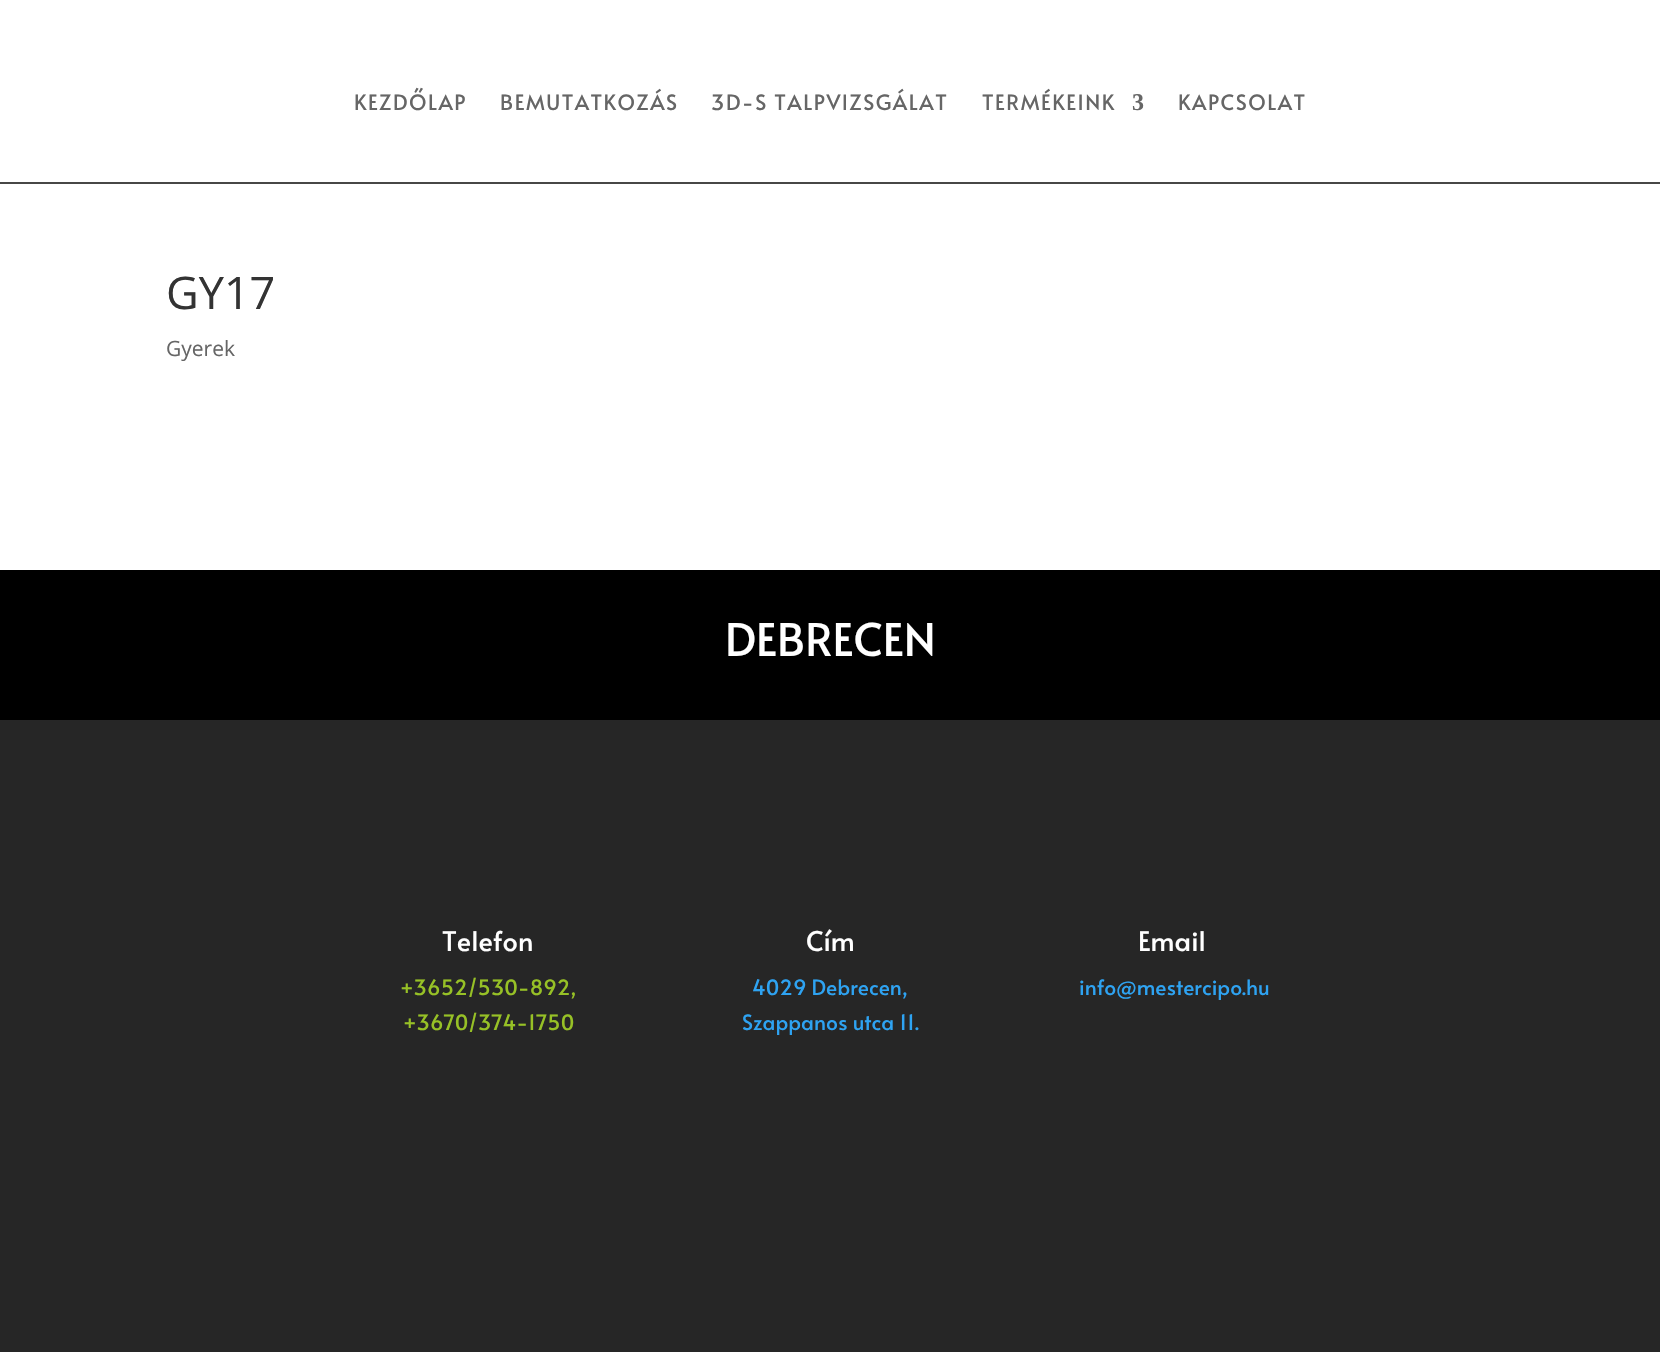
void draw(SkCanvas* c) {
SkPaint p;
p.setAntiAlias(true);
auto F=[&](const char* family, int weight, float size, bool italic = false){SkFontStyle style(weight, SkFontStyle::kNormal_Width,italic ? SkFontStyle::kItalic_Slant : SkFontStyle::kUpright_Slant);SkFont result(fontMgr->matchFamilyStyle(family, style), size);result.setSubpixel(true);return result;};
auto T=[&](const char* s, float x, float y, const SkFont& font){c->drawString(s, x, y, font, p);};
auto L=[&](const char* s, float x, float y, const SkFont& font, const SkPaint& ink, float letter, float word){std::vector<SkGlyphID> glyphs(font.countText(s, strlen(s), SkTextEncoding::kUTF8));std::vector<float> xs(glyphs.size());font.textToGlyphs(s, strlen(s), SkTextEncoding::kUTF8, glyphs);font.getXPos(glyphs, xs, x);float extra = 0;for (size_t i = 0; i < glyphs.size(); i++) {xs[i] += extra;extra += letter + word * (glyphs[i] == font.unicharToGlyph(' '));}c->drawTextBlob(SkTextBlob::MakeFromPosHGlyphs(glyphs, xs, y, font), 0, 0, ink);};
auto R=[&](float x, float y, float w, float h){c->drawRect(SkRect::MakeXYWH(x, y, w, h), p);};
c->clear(0xffffffff);
p.setColor(0xff474746);
R(0,182,1660,2);
auto f1 = F("Alata",400,21);
p.setColor(0xff666666);
L("KEZDŐLAP",354,110,f1,p,1.5,0);
L("BEMUTATKOZÁS",500,110,f1,p,1.5,0);
L("3D-S TALPVIZSGÁLAT",711,110,f1,p,1.5,0);
L("TERMÉKEINK",982,110,f1,p,1.5,0);
auto f2 = F("Liberation Serif",700,24);
L("3",1132,110,f2,p,1.5,0);
L("KAPCSOLAT",1178,110,f1,p,1.5,0);
auto f3 = F("Open Sans",400,45);
p.setColor(0xff333333);
T("GY17",166,309,f3);
auto f4 = F("Open Sans",400,21);
p.setColor(0xff666666);
T("Gyerek",166,356,f4);
p.setColor(0xff000000);
R(0,570,1660,150);
auto f5 = F("Alata",400,45);
p.setColor(0xffffffff);
T("DEBRECEN",725,656,f5);
p.setColor(0xff262626);
R(0,720,1660,632);
auto f6 = F("Alata",400,27);
p.setColor(0xffffffff);
T("Telefon",442,951,f6);
p.setColor(0xff97c126);
T("+3652/530-892,",400,995,f1);
T("+3670/374-1750",403,1030,f1);
p.setColor(0xffffffff);
T("Cím",806,951,f6);
p.setColor(0xff2ea3f2);
T("4029 Debrecen,",752,995,f1);
T("Szappanos utca 11.",742,1030,f1);
p.setColor(0xffffffff);
T("Email",1138,951,f6);
p.setColor(0xff2ea3f2);
T("info@mestercipo.hu",1079,995,f1);
}
